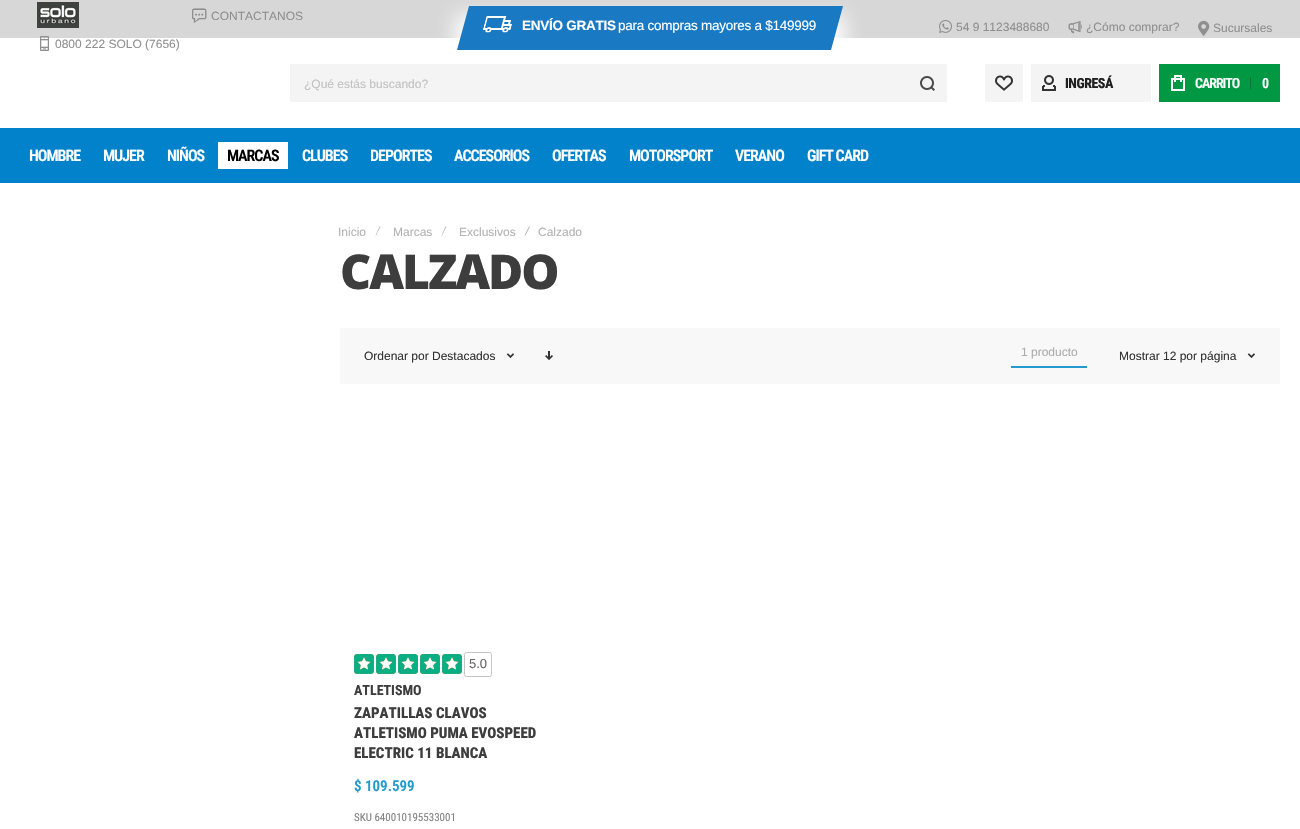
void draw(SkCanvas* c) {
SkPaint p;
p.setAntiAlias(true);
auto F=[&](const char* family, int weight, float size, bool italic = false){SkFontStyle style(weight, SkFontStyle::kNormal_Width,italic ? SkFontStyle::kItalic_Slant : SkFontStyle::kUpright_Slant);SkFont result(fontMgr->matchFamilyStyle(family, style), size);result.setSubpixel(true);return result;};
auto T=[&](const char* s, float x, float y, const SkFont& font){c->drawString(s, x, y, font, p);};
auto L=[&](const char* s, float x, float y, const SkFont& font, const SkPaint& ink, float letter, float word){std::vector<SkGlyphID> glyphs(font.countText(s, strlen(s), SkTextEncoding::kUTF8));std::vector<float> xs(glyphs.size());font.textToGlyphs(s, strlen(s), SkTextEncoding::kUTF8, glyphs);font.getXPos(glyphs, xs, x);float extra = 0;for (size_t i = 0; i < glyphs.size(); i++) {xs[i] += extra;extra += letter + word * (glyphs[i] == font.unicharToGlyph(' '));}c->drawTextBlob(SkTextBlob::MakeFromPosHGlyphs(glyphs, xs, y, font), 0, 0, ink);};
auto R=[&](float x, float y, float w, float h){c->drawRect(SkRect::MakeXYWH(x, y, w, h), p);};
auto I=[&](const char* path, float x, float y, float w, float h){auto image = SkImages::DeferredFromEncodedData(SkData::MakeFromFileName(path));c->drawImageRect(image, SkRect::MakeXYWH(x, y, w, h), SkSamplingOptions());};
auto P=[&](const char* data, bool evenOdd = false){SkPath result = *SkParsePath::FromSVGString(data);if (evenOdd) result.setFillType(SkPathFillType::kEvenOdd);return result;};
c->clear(0xffffffff);
p.setColor(0xffd7d7d7);
R(0,0,1300,38);
I("1.png",37,2,42,26);
auto f1 = F("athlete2",400,15);
p.setColor(0xff8f8f8f);
T("'",192,23,f1);
auto f2 = F("Liberation Sans",400,12);
T("CONTACTANOS",211,20,f2);
T("0",37,51,f1);
T("0800 222 SOLO (7656)",55,48,f2);
p.setColor(0xffffffff);
p.setMaskFilter(SkMaskFilter::MakeBlur(kNormal_SkBlurStyle, 10));
c->drawRect(SkRect::MakeXYWH(455,15,390,61),p);
p.setMaskFilter(nullptr);
p.setColor(0xff1979c3);
c->drawPath(P("M469 6h374l-12 44h-374z"),p);
I("2.png",483,16,29,17);
auto f3 = F("Liberation Sans",700,13.5);
p.setColor(0xffffffff);
L("ENVÍO GRATIS",522,30,f3,p,-.25,0);
auto f4 = F("Liberation Sans",400,13.5);
L("para compras mayores a $149999",618,30,f4,p,-.25,0);
I("3.png",939,20,13,13);
p.setColor(0xff8f8f8f);
T("54 9 1123488680",956,31,f2);
T("-",1068,34,f1);
T("¿Cómo comprar?",1086,31,f2);
I("4.png",1198,20,12,16);
T("Sucursales",1213,32,f2);
p.setColor(0xfff4f4f4);
R(290,64,657,38);
p.setColor(0xffc2c2c2);
T("¿Qué estás buscando?",304,88,f2);
I("5.png",920,76,15,15);
p.setColor(0xfff4f4f4);
R(985,64,38,38);
I("6.png",995,75,18,16);
R(1031,64,120,38);
I("7.png",1042,75,14,16);
auto f5 = F("Roboto Condensed",800,14);
p.setColor(0xff202020);
L("INGRESÁ",1065,88,f5,p,-.5,0);
p.setColor(0xff009843);
R(1159,64,121,38);
I("8.png",1171,75,14,16);
auto f6 = F("Roboto Condensed",600,14);
p.setColor(0xffffffff);
L("CARRITO",1195,88,f6,p,-1,0);
p.setColor(0xff007835);
R(1250,77,1,12);
p.setColor(0xffffffff);
L("0",1262,88,f6,p,-1,0);
p.setColor(0xff0182ca);
R(0,128,1300,55);
auto f7 = F("Roboto Condensed",600,16);
p.setColor(0xffffffff);
L("HOMBRE",29,161,f7,p,-1,0);
L("MUJER",103,161,f7,p,-1,0);
L("NIÑOS",167,161,f7,p,-1,0);
R(218,142,70,27);
p.setColor(0xff000000);
L("MARCAS",227,161,f7,p,-1,0);
p.setColor(0xffffffff);
L("CLUBES",302,161,f7,p,-1,0);
L("DEPORTES",370,161,f7,p,-1,0);
L("ACCESORIOS",454,161,f7,p,-1,0);
L("OFERTAS",552,161,f7,p,-1,0);
L("MOTORSPORT",629,161,f7,p,-1,0);
L("VERANO",735,161,f7,p,-1,0);
L("GIFT CARD",807,161,f7,p,-1,0);
p.setColor(0xffb3b3b3);
T("Inicio",338,236,f2);
c->drawPath(P("M379.5 226.5h1l-4.5 9h-.5z"),p);
T("Marcas",393,236,f2);
c->drawPath(P("M445.5 226.5h1l-4.5 9h-.5z"),p);
T("Exclusivos",459,236,f2);
c->drawPath(P("M529 226.5h1l-4.5 9h-1z"),p);
T("Calzado",538,236,f2);
auto f8 = F("Open Sans",800,48);
p.setColor(0xff3d3d3d);
L("CALZADO",340,289,f8,p,-2,0);
p.setColor(0xfff8f8f8);
R(340,328,940,56);
p.setColor(0xff333333);
T("Ordenar por Destacados",364,360,f2);
I("9.png",506,353,8,6);
I("10.png",545,351,8,9);
p.setColor(0xffacacac);
T("1 producto",1021,356,f2);
p.setColor(0xff229acd);
R(1011,366,76,2);
p.setColor(0xff333333);
T("Mostrar 12 por página",1119,360,f2);
I("9.png",1247,353,8,6);
I("11.png",354,654,20,20);
I("11.png",376,654,20,20);
I("11.png",398,654,20,20);
I("11.png",420,654,20,20);
I("11.png",442,654,20,20);
p.setStroke(true);
p.setStrokeWidth(1);
p.setColor(0xffc5c5c5);
c->drawRoundRect(SkRect::MakeXYWH(464.5,652.5,27,24),2,2,p);
auto f9 = F("Liberation Sans",400,13);
p.setStroke(false);
p.setColor(0xff666666);
T("5.0",469,668,f9);
auto f10 = F("Roboto Condensed",700,14);
p.setColor(0xff3d3d3d);
T("ATLETISMO",354,695,f10);
auto f11 = F("Roboto Condensed",800,15);
T("ZAPATILLAS CLAVOS",354,718,f11);
T("ATLETISMO PUMA EVOSPEED",354,738,f11);
T("ELECTRIC 11 BLANCA",354,758,f11);
auto f12 = F("Roboto Condensed",600,15);
p.setColor(0xff229acd);
T("$ 109.599",354,791,f12);
auto f13 = F("Roboto Condensed",400,11);
p.setColor(0xff828282);
T("SKU 640010195533001",354,821,f13);
}
